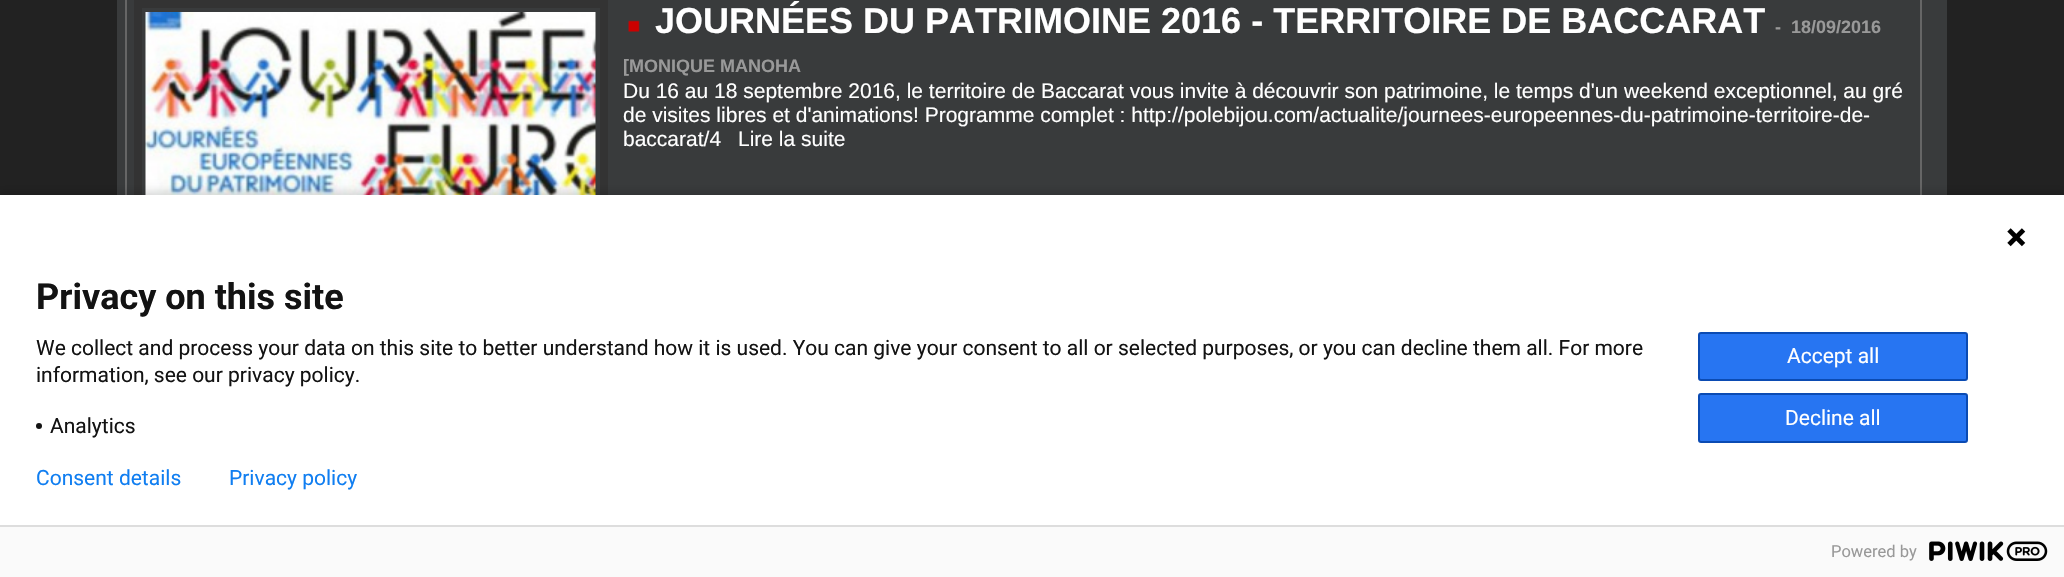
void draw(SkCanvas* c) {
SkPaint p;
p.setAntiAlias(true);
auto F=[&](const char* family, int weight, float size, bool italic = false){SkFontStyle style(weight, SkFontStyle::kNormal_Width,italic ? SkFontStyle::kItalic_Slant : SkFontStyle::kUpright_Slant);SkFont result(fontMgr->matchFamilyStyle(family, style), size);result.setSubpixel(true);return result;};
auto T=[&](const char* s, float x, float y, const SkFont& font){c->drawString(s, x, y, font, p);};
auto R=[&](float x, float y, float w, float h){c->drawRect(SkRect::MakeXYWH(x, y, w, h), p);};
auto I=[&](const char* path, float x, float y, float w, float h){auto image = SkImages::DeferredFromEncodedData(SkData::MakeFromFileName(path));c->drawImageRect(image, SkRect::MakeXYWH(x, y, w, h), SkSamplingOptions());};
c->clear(0xff222222);
p.setColor(0xff393b3c);
R(117,0,1830,195);
p.setStroke(true);
p.setStrokeWidth(2);
p.setColor(0xff666666);
c->drawRect(SkRect::MakeXYWH(126,-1,1795,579),p);
p.setStrokeWidth(8);
p.setColor(0xff333333);
c->drawRect(SkRect::MakeXYWH(138,4,466,295),p);
I("1.png",145,12,451,183);
I("2.png",628,20,12,12);
auto f1 = F("Liberation Sans",700,36);
p.setStroke(false);
p.setColor(0xffffffff);
T("JOURNÉES DU PATRIMOINE 2016 - TERRITOIRE DE BACCARAT",655,33,f1);
auto f2 = F("Liberation Sans",700,18);
p.setColor(0xff999999);
T("-",1775,33,f2);
T("18/09/2016",1791,33,f2);
T("[MONIQUE MANOHA",623,72,f2);
auto f3 = F("Liberation Sans",400,21);
p.setColor(0xffffffff);
T("Du 16 au 18 septembre 2016, le territoire de Baccarat vous invite à découvrir son patrimoine, le temps d'un weekend exceptionnel, au gré",623,98,f3);
T("de visites libres et d'animations! Programme complet : http://polebijou.com/actualite/journees-europeennes-du-patrimoine-territoire-de-",623,122,f3);
T("baccarat/4",623,146,f3);
T("Lire la suite",738,146,f3);
p.setColor(0x24000000);
p.setMaskFilter(SkMaskFilter::MakeBlur(kNormal_SkBlurStyle, 4));
c->drawRect(SkRect::MakeXYWH(-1,191,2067,385),p);
p.setMaskFilter(nullptr);
p.setColor(0xffffffff);
R(0,195,2064,330);
I("3.png",2007,228,19,19);
auto f4 = F("Roboto",700,36);
p.setColor(0xff131313);
T("Privacy on this site",36,309,f4);
auto f5 = F("Roboto",400,21);
T("We collect and process your data on this site to better understand how it is used. You can give your consent to all or selected purposes, or you can decline them all. For more",36,355,f5);
T("information, see our privacy policy.",36,382,f5);
c->drawCircle(39,426,3,p);
T("Analytics",50,433,f5);
p.setColor(0xff2775f2);
c->drawRoundRect(SkRect::MakeXYWH(1699,333,268,47),2,2,p);
p.setStroke(true);
p.setStrokeWidth(2);
p.setColor(0xff0b4bb3);
c->drawRoundRect(SkRect::MakeXYWH(1699,333,268,47),2,2,p);
p.setStroke(false);
p.setColor(0xffffffff);
T("Accept all",1787,363,f5);
p.setColor(0xff2775f2);
c->drawRoundRect(SkRect::MakeXYWH(1699,394,268,48),2,2,p);
p.setStroke(true);
p.setColor(0xff0b4bb3);
c->drawRoundRect(SkRect::MakeXYWH(1699,394,268,48),2,2,p);
p.setStroke(false);
p.setColor(0xffffffff);
T("Decline all",1785,425,f5);
p.setColor(0xff107ef1);
T("Consent details",36,485,f5);
T("Privacy policy",229,485,f5);
p.setColor(0xfffafafa);
R(0,527,2064,50);
p.setColor(0xffdddddd);
R(0,525,2064,2);
auto f6 = F("Roboto",400,16.5);
p.setColor(0xff999999);
T("Powered by",1831,557,f6);
I("4.png",1929,541,119,20);
}
